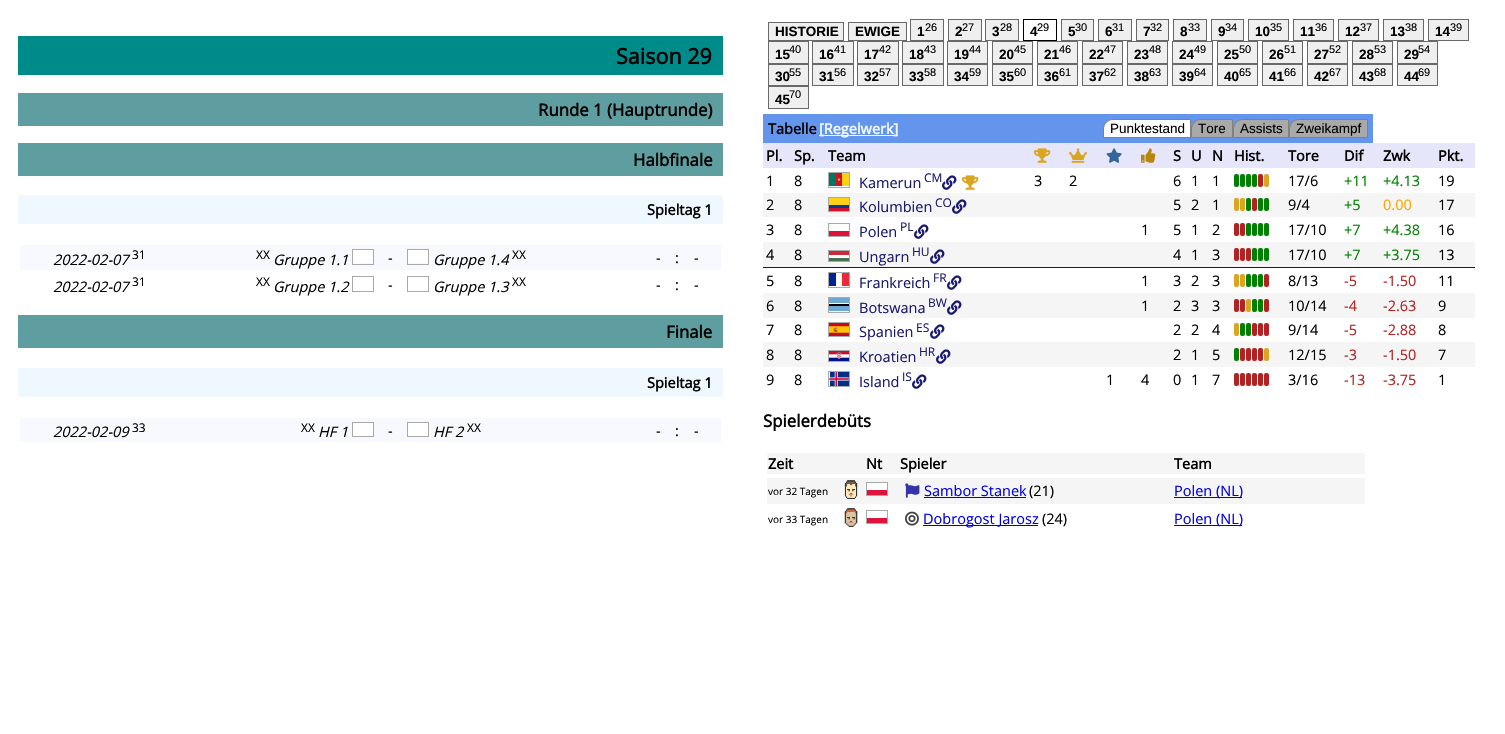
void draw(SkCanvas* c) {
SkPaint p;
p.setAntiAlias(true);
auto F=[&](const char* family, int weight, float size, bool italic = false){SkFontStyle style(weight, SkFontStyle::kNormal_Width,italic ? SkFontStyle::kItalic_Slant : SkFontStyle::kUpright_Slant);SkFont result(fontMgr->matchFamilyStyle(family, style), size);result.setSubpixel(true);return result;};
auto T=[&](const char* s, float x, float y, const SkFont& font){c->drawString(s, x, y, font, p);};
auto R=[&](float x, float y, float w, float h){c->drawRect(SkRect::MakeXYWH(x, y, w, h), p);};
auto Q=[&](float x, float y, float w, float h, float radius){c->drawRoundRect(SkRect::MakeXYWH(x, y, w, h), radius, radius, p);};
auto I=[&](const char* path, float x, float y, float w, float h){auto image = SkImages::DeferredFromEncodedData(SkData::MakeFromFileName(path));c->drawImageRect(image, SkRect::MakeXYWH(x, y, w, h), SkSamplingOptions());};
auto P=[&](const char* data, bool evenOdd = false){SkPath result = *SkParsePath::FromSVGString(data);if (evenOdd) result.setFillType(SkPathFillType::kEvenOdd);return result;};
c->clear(0xffffffff);
p.setColor(0xff008b8b);
R(18,36,705,39);
auto f1 = F("Open Sans",700,21.5);
p.setColor(0xff000000);
T("Saison 29",616,64,f1);
p.setColor(0xff5f9ea0);
R(18,93,705,33);
auto f2 = F("Open Sans",700,16.8);
p.setColor(0xff000000);
T("Runde 1 (Hauptrunde)",538,116,f2);
p.setColor(0xff5f9ea0);
R(18,143,705,33);
p.setColor(0xff000000);
T("Halbfinale",633,166,f2);
p.setColor(0xfff0f8ff);
R(18,195,705,29);
auto f3 = F("Open Sans",700,14.5);
p.setColor(0xff000000);
T("Spieltag 1",647,215,f3);
p.setColor(0xfff8f8ff);
R(20,245,701,25);
auto f4 = F("Open Sans",400,14.5,true);
p.setColor(0xff000000);
T("2022-02-07",53,265,f4);
auto f5 = F("Open Sans",400,12);
T("31",132,259,f5);
T("XX",256,259,f5);
p.setStroke(true);
p.setStrokeWidth(1);
p.setColor(0xffa9a9a9);
c->drawRect(SkRect::MakeXYWH(352.5,249.5,21,15),p);
p.setStroke(false);
p.setColor(0xff000000);
T("Gruppe 1.1",273,265,f4);
p.setColor(0xffffffff);
R(353,250,20,13);
auto f6 = F("Open Sans",400,14.5);
p.setColor(0xff000000);
T("-",388,263,f6);
p.setStroke(true);
p.setColor(0xffa9a9a9);
c->drawRect(SkRect::MakeXYWH(407.5,249.5,21,15),p);
p.setStroke(false);
p.setColor(0xffffffff);
R(408,250,20,13);
p.setColor(0xff000000);
T("Gruppe 1.4",433,265,f4);
T("XX",512,259,f5);
T("-",656,263,f6);
T(":",675,263,f6);
T("-",694,263,f6);
T("2022-02-07",53,292,f4);
T("31",132,286,f5);
T("XX",256,286,f5);
T("Gruppe 1.2",273,292,f4);
p.setStroke(true);
p.setColor(0xffa9a9a9);
c->drawRect(SkRect::MakeXYWH(352.5,276.5,21,15),p);
p.setStroke(false);
p.setColor(0xff000000);
T("-",388,290,f6);
p.setStroke(true);
p.setColor(0xffa9a9a9);
c->drawRect(SkRect::MakeXYWH(407.5,276.5,21,15),p);
p.setStroke(false);
p.setColor(0xff000000);
T("Gruppe 1.3",433,292,f4);
T("XX",512,286,f5);
T("-",656,290,f6);
T(":",675,290,f6);
T("-",694,290,f6);
p.setColor(0xff5f9ea0);
R(18,315,705,33);
p.setColor(0xff000000);
T("Finale",666,338,f2);
p.setColor(0xfff0f8ff);
R(18,368,705,29);
p.setColor(0xff000000);
T("Spieltag 1",647,388,f3);
p.setColor(0xfff8f8ff);
R(20,418,701,24);
p.setColor(0xff000000);
T("2022-02-09",53,437,f4);
T("33",132,432,f5);
T("XX",301,432,f5);
p.setStroke(true);
p.setColor(0xffa9a9a9);
c->drawRect(SkRect::MakeXYWH(352.5,422.5,21,14),p);
p.setStroke(false);
p.setColor(0xff000000);
T("HF 1",318,437,f4);
p.setColor(0xffffffff);
R(353,423,20,13);
p.setColor(0xff000000);
T("-",388,436,f6);
p.setStroke(true);
p.setColor(0xffa9a9a9);
c->drawRect(SkRect::MakeXYWH(407.5,422.5,21,14),p);
p.setStroke(false);
p.setColor(0xffffffff);
R(408,423,20,13);
p.setColor(0xff000000);
T("HF 2",433,437,f4);
T("XX",467,432,f5);
T("-",656,436,f6);
T(":",675,436,f6);
T("-",694,436,f6);
p.setColor(0xffefefef);
c->drawRect(SkRect::MakeXYWH(768.5,22.5,75,18),p);
p.setStroke(true);
p.setColor(0xff696969);
c->drawRect(SkRect::MakeXYWH(768.5,22.5,75,18),p);
auto f7 = F("Liberation Sans",700,13.5);
p.setStroke(false);
p.setColor(0xff000000);
T("HISTORIE",775,36,f7);
p.setColor(0xffefefef);
c->drawRect(SkRect::MakeXYWH(848.5,22.5,58,18),p);
p.setStroke(true);
p.setColor(0xff696969);
c->drawRect(SkRect::MakeXYWH(848.5,22.5,58,18),p);
p.setStroke(false);
p.setColor(0xff000000);
T("EWIGE",855,36,f7);
p.setColor(0xffefefef);
c->drawRect(SkRect::MakeXYWH(910.5,19.5,33,21),p);
p.setStroke(true);
p.setColor(0xff696969);
c->drawRect(SkRect::MakeXYWH(910.5,19.5,33,21),p);
p.setStroke(false);
p.setColor(0xff000000);
T("1",917,36,f7);
auto f8 = F("Liberation Sans",400,11);
T("26",925,31,f8);
p.setColor(0xffefefef);
c->drawRect(SkRect::MakeXYWH(948.5,19.5,33,21),p);
p.setStroke(true);
p.setColor(0xff696969);
c->drawRect(SkRect::MakeXYWH(948.5,19.5,33,21),p);
p.setStroke(false);
p.setColor(0xff000000);
T("2",955,36,f7);
T("27",962,31,f8);
p.setColor(0xffefefef);
c->drawRect(SkRect::MakeXYWH(985.5,19.5,33,21),p);
p.setStroke(true);
p.setColor(0xff696969);
c->drawRect(SkRect::MakeXYWH(985.5,19.5,33,21),p);
p.setStroke(false);
p.setColor(0xff000000);
T("3",992,36,f7);
T("28",1000,31,f8);
p.setStroke(true);
c->drawRect(SkRect::MakeXYWH(1023.5,19.5,33,21),p);
p.setStroke(false);
T("4",1030,36,f7);
T("29",1037,31,f8);
p.setColor(0xffefefef);
c->drawRect(SkRect::MakeXYWH(1061.5,19.5,32,21),p);
p.setStroke(true);
p.setColor(0xff696969);
c->drawRect(SkRect::MakeXYWH(1061.5,19.5,32,21),p);
p.setStroke(false);
p.setColor(0xff000000);
T("5",1068,36,f7);
T("30",1075,31,f8);
p.setColor(0xffefefef);
c->drawRect(SkRect::MakeXYWH(1098.5,19.5,33,21),p);
p.setStroke(true);
p.setColor(0xff696969);
c->drawRect(SkRect::MakeXYWH(1098.5,19.5,33,21),p);
p.setStroke(false);
p.setColor(0xff000000);
T("6",1105,36,f7);
T("31",1112,31,f8);
p.setColor(0xffefefef);
c->drawRect(SkRect::MakeXYWH(1136.5,19.5,32,21),p);
p.setStroke(true);
p.setColor(0xff696969);
c->drawRect(SkRect::MakeXYWH(1136.5,19.5,32,21),p);
p.setStroke(false);
p.setColor(0xff000000);
T("7",1143,36,f7);
T("32",1150,31,f8);
p.setColor(0xffefefef);
c->drawRect(SkRect::MakeXYWH(1173.5,19.5,33,21),p);
p.setStroke(true);
p.setColor(0xff696969);
c->drawRect(SkRect::MakeXYWH(1173.5,19.5,33,21),p);
p.setStroke(false);
p.setColor(0xff000000);
T("8",1180,36,f7);
T("33",1188,31,f8);
p.setColor(0xffefefef);
c->drawRect(SkRect::MakeXYWH(1211.5,19.5,32,21),p);
p.setStroke(true);
p.setColor(0xff696969);
c->drawRect(SkRect::MakeXYWH(1211.5,19.5,32,21),p);
p.setStroke(false);
p.setColor(0xff000000);
T("9",1218,36,f7);
T("34",1225,31,f8);
p.setColor(0xffefefef);
c->drawRect(SkRect::MakeXYWH(1248.5,19.5,40,21),p);
p.setStroke(true);
p.setColor(0xff696969);
c->drawRect(SkRect::MakeXYWH(1248.5,19.5,40,21),p);
p.setStroke(false);
p.setColor(0xff000000);
T("10",1255,36,f7);
T("35",1270,31,f8);
p.setColor(0xffefefef);
c->drawRect(SkRect::MakeXYWH(1293.5,19.5,40,21),p);
p.setStroke(true);
p.setColor(0xff696969);
c->drawRect(SkRect::MakeXYWH(1293.5,19.5,40,21),p);
p.setStroke(false);
p.setColor(0xff000000);
T("11",1300,36,f7);
T("36",1315,31,f8);
p.setColor(0xffefefef);
c->drawRect(SkRect::MakeXYWH(1338.5,19.5,40,21),p);
p.setStroke(true);
p.setColor(0xff696969);
c->drawRect(SkRect::MakeXYWH(1338.5,19.5,40,21),p);
p.setStroke(false);
p.setColor(0xff000000);
T("12",1345,36,f7);
T("37",1360,31,f8);
p.setColor(0xffefefef);
c->drawRect(SkRect::MakeXYWH(1383.5,19.5,40,21),p);
p.setStroke(true);
p.setColor(0xff696969);
c->drawRect(SkRect::MakeXYWH(1383.5,19.5,40,21),p);
p.setStroke(false);
p.setColor(0xff000000);
T("13",1390,36,f7);
T("38",1405,31,f8);
p.setColor(0xffefefef);
c->drawRect(SkRect::MakeXYWH(1428.5,19.5,40,21),p);
p.setStroke(true);
p.setColor(0xff696969);
c->drawRect(SkRect::MakeXYWH(1428.5,19.5,40,21),p);
p.setStroke(false);
p.setColor(0xff000000);
T("14",1435,36,f7);
T("39",1450,31,f8);
p.setColor(0xffefefef);
c->drawRect(SkRect::MakeXYWH(768.5,41.5,40,22),p);
p.setStroke(true);
p.setColor(0xff696969);
c->drawRect(SkRect::MakeXYWH(768.5,41.5,40,22),p);
p.setStroke(false);
p.setColor(0xff000000);
T("15",775,59,f7);
T("40",789,53,f8);
p.setColor(0xffefefef);
c->drawRect(SkRect::MakeXYWH(812.5,41.5,41,22),p);
p.setStroke(true);
p.setColor(0xff696969);
c->drawRect(SkRect::MakeXYWH(812.5,41.5,41,22),p);
p.setStroke(false);
p.setColor(0xff000000);
T("16",819,59,f7);
T("41",834,53,f8);
p.setColor(0xffefefef);
c->drawRect(SkRect::MakeXYWH(857.5,41.5,41,22),p);
p.setStroke(true);
p.setColor(0xff696969);
c->drawRect(SkRect::MakeXYWH(857.5,41.5,41,22),p);
p.setStroke(false);
p.setColor(0xff000000);
T("17",864,59,f7);
T("42",879,53,f8);
p.setColor(0xffefefef);
c->drawRect(SkRect::MakeXYWH(902.5,41.5,41,22),p);
p.setStroke(true);
p.setColor(0xff696969);
c->drawRect(SkRect::MakeXYWH(902.5,41.5,41,22),p);
p.setStroke(false);
p.setColor(0xff000000);
T("18",909,59,f7);
T("43",924,53,f8);
p.setColor(0xffefefef);
c->drawRect(SkRect::MakeXYWH(947.5,41.5,40,22),p);
p.setStroke(true);
p.setColor(0xff696969);
c->drawRect(SkRect::MakeXYWH(947.5,41.5,40,22),p);
p.setStroke(false);
p.setColor(0xff000000);
T("19",954,59,f7);
T("44",969,53,f8);
p.setColor(0xffefefef);
c->drawRect(SkRect::MakeXYWH(992.5,41.5,40,22),p);
p.setStroke(true);
p.setColor(0xff696969);
c->drawRect(SkRect::MakeXYWH(992.5,41.5,40,22),p);
p.setStroke(false);
p.setColor(0xff000000);
T("20",999,59,f7);
T("45",1014,53,f8);
p.setColor(0xffefefef);
c->drawRect(SkRect::MakeXYWH(1037.5,41.5,40,22),p);
p.setStroke(true);
p.setColor(0xff696969);
c->drawRect(SkRect::MakeXYWH(1037.5,41.5,40,22),p);
p.setStroke(false);
p.setColor(0xff000000);
T("21",1044,59,f7);
T("46",1059,53,f8);
p.setColor(0xffefefef);
c->drawRect(SkRect::MakeXYWH(1082.5,41.5,40,22),p);
p.setStroke(true);
p.setColor(0xff696969);
c->drawRect(SkRect::MakeXYWH(1082.5,41.5,40,22),p);
p.setStroke(false);
p.setColor(0xff000000);
T("22",1089,59,f7);
T("47",1104,53,f8);
p.setColor(0xffefefef);
c->drawRect(SkRect::MakeXYWH(1127.5,41.5,40,22),p);
p.setStroke(true);
p.setColor(0xff696969);
c->drawRect(SkRect::MakeXYWH(1127.5,41.5,40,22),p);
p.setStroke(false);
p.setColor(0xff000000);
T("23",1134,59,f7);
T("48",1149,53,f8);
p.setColor(0xffefefef);
c->drawRect(SkRect::MakeXYWH(1172.5,41.5,40,22),p);
p.setStroke(true);
p.setColor(0xff696969);
c->drawRect(SkRect::MakeXYWH(1172.5,41.5,40,22),p);
p.setStroke(false);
p.setColor(0xff000000);
T("24",1179,59,f7);
T("49",1194,53,f8);
p.setColor(0xffefefef);
c->drawRect(SkRect::MakeXYWH(1217.5,41.5,40,22),p);
p.setStroke(true);
p.setColor(0xff696969);
c->drawRect(SkRect::MakeXYWH(1217.5,41.5,40,22),p);
p.setStroke(false);
p.setColor(0xff000000);
T("25",1224,59,f7);
T("50",1239,53,f8);
p.setColor(0xffefefef);
c->drawRect(SkRect::MakeXYWH(1262.5,41.5,40,22),p);
p.setStroke(true);
p.setColor(0xff696969);
c->drawRect(SkRect::MakeXYWH(1262.5,41.5,40,22),p);
p.setStroke(false);
p.setColor(0xff000000);
T("26",1269,59,f7);
T("51",1284,53,f8);
p.setColor(0xffefefef);
c->drawRect(SkRect::MakeXYWH(1307.5,41.5,40,22),p);
p.setStroke(true);
p.setColor(0xff696969);
c->drawRect(SkRect::MakeXYWH(1307.5,41.5,40,22),p);
p.setStroke(false);
p.setColor(0xff000000);
T("27",1314,59,f7);
T("52",1329,53,f8);
p.setColor(0xffefefef);
c->drawRect(SkRect::MakeXYWH(1352.5,41.5,40,22),p);
p.setStroke(true);
p.setColor(0xff696969);
c->drawRect(SkRect::MakeXYWH(1352.5,41.5,40,22),p);
p.setStroke(false);
p.setColor(0xff000000);
T("28",1359,59,f7);
T("53",1374,53,f8);
p.setColor(0xffefefef);
c->drawRect(SkRect::MakeXYWH(1397.5,41.5,40,22),p);
p.setStroke(true);
p.setColor(0xff696969);
c->drawRect(SkRect::MakeXYWH(1397.5,41.5,40,22),p);
p.setStroke(false);
p.setColor(0xff000000);
T("29",1404,59,f7);
T("54",1418,53,f8);
p.setColor(0xffefefef);
c->drawRect(SkRect::MakeXYWH(768.5,64.5,40,21),p);
p.setStroke(true);
p.setColor(0xff696969);
c->drawRect(SkRect::MakeXYWH(768.5,64.5,40,21),p);
p.setStroke(false);
p.setColor(0xff000000);
T("30",775,81,f7);
T("55",789,76,f8);
p.setColor(0xffefefef);
c->drawRect(SkRect::MakeXYWH(812.5,64.5,41,21),p);
p.setStroke(true);
p.setColor(0xff696969);
c->drawRect(SkRect::MakeXYWH(812.5,64.5,41,21),p);
p.setStroke(false);
p.setColor(0xff000000);
T("31",819,81,f7);
T("56",834,76,f8);
p.setColor(0xffefefef);
c->drawRect(SkRect::MakeXYWH(857.5,64.5,41,21),p);
p.setStroke(true);
p.setColor(0xff696969);
c->drawRect(SkRect::MakeXYWH(857.5,64.5,41,21),p);
p.setStroke(false);
p.setColor(0xff000000);
T("32",864,81,f7);
T("57",879,76,f8);
p.setColor(0xffefefef);
c->drawRect(SkRect::MakeXYWH(902.5,64.5,41,21),p);
p.setStroke(true);
p.setColor(0xff696969);
c->drawRect(SkRect::MakeXYWH(902.5,64.5,41,21),p);
p.setStroke(false);
p.setColor(0xff000000);
T("33",909,81,f7);
T("58",924,76,f8);
p.setColor(0xffefefef);
c->drawRect(SkRect::MakeXYWH(947.5,64.5,40,21),p);
p.setStroke(true);
p.setColor(0xff696969);
c->drawRect(SkRect::MakeXYWH(947.5,64.5,40,21),p);
p.setStroke(false);
p.setColor(0xff000000);
T("34",954,81,f7);
T("59",969,76,f8);
p.setColor(0xffefefef);
c->drawRect(SkRect::MakeXYWH(992.5,64.5,40,21),p);
p.setStroke(true);
p.setColor(0xff696969);
c->drawRect(SkRect::MakeXYWH(992.5,64.5,40,21),p);
p.setStroke(false);
p.setColor(0xff000000);
T("35",999,81,f7);
T("60",1014,76,f8);
p.setColor(0xffefefef);
c->drawRect(SkRect::MakeXYWH(1037.5,64.5,40,21),p);
p.setStroke(true);
p.setColor(0xff696969);
c->drawRect(SkRect::MakeXYWH(1037.5,64.5,40,21),p);
p.setStroke(false);
p.setColor(0xff000000);
T("36",1044,81,f7);
T("61",1059,76,f8);
p.setColor(0xffefefef);
c->drawRect(SkRect::MakeXYWH(1082.5,64.5,40,21),p);
p.setStroke(true);
p.setColor(0xff696969);
c->drawRect(SkRect::MakeXYWH(1082.5,64.5,40,21),p);
p.setStroke(false);
p.setColor(0xff000000);
T("37",1089,81,f7);
T("62",1104,76,f8);
p.setColor(0xffefefef);
c->drawRect(SkRect::MakeXYWH(1127.5,64.5,40,21),p);
p.setStroke(true);
p.setColor(0xff696969);
c->drawRect(SkRect::MakeXYWH(1127.5,64.5,40,21),p);
p.setStroke(false);
p.setColor(0xff000000);
T("38",1134,81,f7);
T("63",1149,76,f8);
p.setColor(0xffefefef);
c->drawRect(SkRect::MakeXYWH(1172.5,64.5,40,21),p);
p.setStroke(true);
p.setColor(0xff696969);
c->drawRect(SkRect::MakeXYWH(1172.5,64.5,40,21),p);
p.setStroke(false);
p.setColor(0xff000000);
T("39",1179,81,f7);
T("64",1194,76,f8);
p.setColor(0xffefefef);
c->drawRect(SkRect::MakeXYWH(1217.5,64.5,40,21),p);
p.setStroke(true);
p.setColor(0xff696969);
c->drawRect(SkRect::MakeXYWH(1217.5,64.5,40,21),p);
p.setStroke(false);
p.setColor(0xff000000);
T("40",1224,81,f7);
T("65",1239,76,f8);
p.setColor(0xffefefef);
c->drawRect(SkRect::MakeXYWH(1262.5,64.5,40,21),p);
p.setStroke(true);
p.setColor(0xff696969);
c->drawRect(SkRect::MakeXYWH(1262.5,64.5,40,21),p);
p.setStroke(false);
p.setColor(0xff000000);
T("41",1269,81,f7);
T("66",1284,76,f8);
p.setColor(0xffefefef);
c->drawRect(SkRect::MakeXYWH(1307.5,64.5,40,21),p);
p.setStroke(true);
p.setColor(0xff696969);
c->drawRect(SkRect::MakeXYWH(1307.5,64.5,40,21),p);
p.setStroke(false);
p.setColor(0xff000000);
T("42",1314,81,f7);
T("67",1329,76,f8);
p.setColor(0xffefefef);
c->drawRect(SkRect::MakeXYWH(1352.5,64.5,40,21),p);
p.setStroke(true);
p.setColor(0xff696969);
c->drawRect(SkRect::MakeXYWH(1352.5,64.5,40,21),p);
p.setStroke(false);
p.setColor(0xff000000);
T("43",1359,81,f7);
T("68",1374,76,f8);
p.setColor(0xffefefef);
c->drawRect(SkRect::MakeXYWH(1397.5,64.5,40,21),p);
p.setStroke(true);
p.setColor(0xff696969);
c->drawRect(SkRect::MakeXYWH(1397.5,64.5,40,21),p);
p.setStroke(false);
p.setColor(0xff000000);
T("44",1404,81,f7);
T("69",1418,76,f8);
p.setColor(0xffefefef);
c->drawRect(SkRect::MakeXYWH(768.5,86.5,40,22),p);
p.setStroke(true);
p.setColor(0xff696969);
c->drawRect(SkRect::MakeXYWH(768.5,86.5,40,22),p);
p.setStroke(false);
p.setColor(0xff000000);
T("45",775,104,f7);
T("70",789,98,f8);
p.setColor(0xff6495ed);
R(763,114,610,29);
p.setColor(0xff000000);
T("Tabelle",768,134,f3);
p.setColor(0xfff0f8ff);
R(819,135,79,1);
T("[Regelwerk]",819,134,f3);
p.setColor(0xffffffff);
c->drawPath(P("M1113 119.5h77.5v18h-87v-8.5c0-5 4.5-9.5 9.5-9.5z"),p);
p.setStroke(true);
p.setColor(0xff808080);
c->drawPath(P("M1113 119.5h77.5v18h-87v-8.5c0-5 4.5-9.5 9.5-9.5z"),p);
auto f9 = F("Liberation Sans",400,13.5);
p.setStroke(false);
p.setColor(0xff000000);
T("Punktestand",1110,133,f9);
p.setColor(0xffa9a9a9);
c->drawPath(P("M1201 119.5h31.5v18h-41v-8.5c0-5 4.5-9.5 9.5-9.5z"),p);
p.setStroke(true);
p.setColor(0xff808080);
c->drawPath(P("M1201 119.5h31.5v18h-41v-8.5c0-5 4.5-9.5 9.5-9.5z"),p);
p.setStroke(false);
p.setColor(0xff000000);
T("Tore",1198,133,f9);
p.setColor(0xffa9a9a9);
c->drawPath(P("M1243 119.5h45.5v18h-55v-8.5c0-5 4.5-9.5 9.5-9.5z"),p);
p.setStroke(true);
p.setColor(0xff808080);
c->drawPath(P("M1243 119.5h45.5v18h-55v-8.5c0-5 4.5-9.5 9.5-9.5z"),p);
p.setStroke(false);
p.setColor(0xff000000);
T("Assists",1240,133,f9);
p.setColor(0xffa9a9a9);
c->drawPath(P("M1299 119.5h68.5v18h-78v-8.5c0-5 4.5-9.5 9.5-9.5z"),p);
p.setStroke(true);
p.setColor(0xff808080);
c->drawPath(P("M1299 119.5h68.5v18h-78v-8.5c0-5 4.5-9.5 9.5-9.5z"),p);
p.setStroke(false);
p.setColor(0xff000000);
T("Zweikampf",1296,133,f9);
p.setColor(0xffe6e6fa);
R(763,143,712,25);
p.setColor(0xff000000);
T("Pl.",766,161,f3);
T("Sp.",794,161,f3);
T("Team",828,161,f3);
I("1.png",1034,148,17,15);
I("2.png",1069,148,18,15);
I("3.png",1106,148,16,15);
I("4.png",1141,148,15,15);
T("S",1173,161,f3);
T("U",1191,161,f3);
T("N",1212,161,f3);
T("Hist.",1234,161,f3);
T("Tore",1288,161,f3);
T("Dif",1344,161,f3);
T("Zwk",1383,161,f3);
T("Pkt.",1438,161,f3);
T("1",766,186,f6);
T("8",794,186,f6);
p.setStroke(true);
p.setColor(0xffa9a9a9);
c->drawRect(SkRect::MakeXYWH(828.5,172.5,21,15),p);
I("5.png",829,173,20,13);
p.setStroke(false);
p.setColor(0xff191970);
T("Kamerun",859,188,f6);
T("CM",924,182,f5);
I("6.png",942,175,15,15);
I("7.png",962,175,17,15);
p.setColor(0xff000000);
T("3",1034,186,f6);
T("2",1069,186,f6);
T("6",1173,186,f6);
T("1",1191,186,f6);
T("1",1212,186,f6);
p.setColor(0xff008000);
Q(1234,174,5,13,2);
Q(1240,174,5,13,2);
Q(1246,174,5,13,2);
Q(1252,174,5,13,2);
p.setColor(0xffb22222);
Q(1258,174,5,13,2);
p.setColor(0xffdaa520);
Q(1264,174,5,13,2);
p.setColor(0xff000000);
T("17/6",1288,186,f6);
p.setColor(0xff008000);
T("+11",1344,186,f6);
T("+4.13",1383,186,f6);
p.setColor(0xff000000);
T("19",1438,186,f6);
p.setColor(0xfff5f5f5);
R(763,193,712,24);
p.setColor(0xff000000);
T("2",766,210,f6);
T("8",794,210,f6);
p.setStroke(true);
p.setColor(0xffa9a9a9);
c->drawRect(SkRect::MakeXYWH(828.5,197.5,21,14),p);
p.setStroke(false);
p.setColor(0xfffcd116);
R(829,198,20,7);
p.setColor(0xff191970);
T("Kolumbien",859,212,f6);
T("CO",935,207,f5);
I("8.png",952,199,15,15);
p.setColor(0xff003893);
R(829,205,20,3);
p.setColor(0xffce1126);
R(829,208,20,3);
p.setColor(0xff000000);
T("5",1173,210,f6);
T("2",1191,210,f6);
T("1",1212,210,f6);
p.setColor(0xffdaa520);
Q(1234,198,5,13,2);
Q(1240,198,5,13,2);
p.setColor(0xff008000);
Q(1246,198,5,13,2);
p.setColor(0xffb22222);
Q(1252,198,5,13,2);
p.setColor(0xff008000);
Q(1258,198,5,13,2);
Q(1264,198,5,13,2);
p.setColor(0xff000000);
T("9/4",1288,210,f6);
p.setColor(0xff008000);
T("+5",1344,210,f6);
p.setColor(0xffffa500);
T("0.00",1383,210,f6);
p.setColor(0xff000000);
T("17",1438,210,f6);
T("3",766,235,f6);
T("8",794,235,f6);
p.setStroke(true);
p.setColor(0xffa9a9a9);
c->drawRect(SkRect::MakeXYWH(828.5,223.5,21,13),p);
p.setStroke(false);
p.setColor(0xff191970);
T("Polen",859,237,f6);
T("PL",900,231,f5);
I("6.png",914,224,15,15);
p.setColor(0xffdc143c);
R(829,231,20,5);
p.setColor(0xff000000);
T("1",1141,235,f6);
T("5",1173,235,f6);
T("1",1191,235,f6);
T("2",1212,235,f6);
p.setColor(0xffb22222);
Q(1234,223,5,13,2);
Q(1240,223,5,13,2);
p.setColor(0xff008000);
Q(1246,223,5,13,2);
Q(1252,223,5,13,2);
Q(1258,223,5,13,2);
Q(1264,223,5,13,2);
p.setColor(0xff000000);
T("17/10",1288,235,f6);
p.setColor(0xff008000);
T("+7",1344,235,f6);
T("+4.38",1383,235,f6);
p.setColor(0xff000000);
T("16",1438,235,f6);
p.setColor(0xfff5f5f5);
R(763,242,712,25);
p.setColor(0xff000000);
T("4",766,260,f6);
T("8",794,260,f6);
p.setStroke(true);
p.setColor(0xffa9a9a9);
c->drawRect(SkRect::MakeXYWH(828.5,250.5,21,11),p);
p.setStroke(false);
p.setColor(0xff191970);
T("HU",912,256,f5);
I("8.png",930,249,15,15);
p.setColor(0xffce2939);
R(829,251,20,4);
p.setColor(0xff191970);
T("Ungarn",859,262,f6);
p.setColor(0xffffffff);
R(829,255,20,3);
p.setColor(0xff477050);
R(829,258,20,3);
p.setColor(0xff000000);
T("4",1173,260,f6);
T("1",1191,260,f6);
T("3",1212,260,f6);
p.setColor(0xffb22222);
Q(1234,248,5,13,2);
Q(1240,248,5,13,2);
Q(1246,248,5,13,2);
p.setColor(0xff008000);
Q(1252,248,5,13,2);
Q(1258,248,5,13,2);
Q(1264,248,5,13,2);
p.setColor(0xff000000);
T("17/10",1288,260,f6);
p.setColor(0xff008000);
T("+7",1344,260,f6);
T("+3.75",1383,260,f6);
p.setColor(0xff0000ff);
R(763,267,712,1);
p.setColor(0xff000000);
T("13",1438,260,f6);
T("5",766,286,f6);
T("8",794,286,f6);
p.setStroke(true);
p.setColor(0xffa9a9a9);
c->drawRect(SkRect::MakeXYWH(828.5,272.5,21,15),p);
p.setStroke(false);
p.setColor(0xff002395);
R(829,273,7,13);
p.setColor(0xffed2939);
R(842,273,7,13);
p.setColor(0xff191970);
T("Frankreich",859,288,f6);
T("FR",933,282,f5);
I("6.png",947,275,15,15);
p.setColor(0xff000000);
T("1",1141,286,f6);
T("3",1173,286,f6);
T("2",1191,286,f6);
T("3",1212,286,f6);
p.setColor(0xffdaa520);
Q(1234,274,5,13,2);
Q(1240,274,5,13,2);
p.setColor(0xff008000);
Q(1246,274,5,13,2);
Q(1252,274,5,13,2);
Q(1258,274,5,13,2);
p.setColor(0xffb22222);
Q(1264,274,5,13,2);
p.setColor(0xff000000);
T("8/13",1288,286,f6);
p.setColor(0xffb22222);
T("-5",1344,286,f6);
T("-1.50",1383,286,f6);
p.setColor(0xff000000);
T("11",1438,286,f6);
p.setColor(0xfff5f5f5);
R(763,293,712,25);
p.setColor(0xff000000);
T("6",766,311,f6);
T("8",794,311,f6);
p.setStroke(true);
p.setColor(0xffa9a9a9);
c->drawRect(SkRect::MakeXYWH(828.5,297.5,21,15),p);
p.setStroke(false);
p.setColor(0xff6da9d2);
R(829,298,20,13);
p.setColor(0xff191970);
T("Botswana",859,313,f6);
T("BW",928,307,f5);
I("8.png",947,300,15,15);
p.setColor(0xffffffff);
R(829,303,20,1);
p.setColor(0xff000000);
R(829,304,20,2);
T("1",1141,311,f6);
T("2",1173,311,f6);
T("3",1191,311,f6);
T("3",1212,311,f6);
p.setColor(0xffb22222);
Q(1234,299,5,13,2);
Q(1240,299,5,13,2);
p.setColor(0xffdaa520);
Q(1246,299,5,13,2);
p.setColor(0xff008000);
Q(1252,299,5,13,2);
Q(1258,299,5,13,2);
p.setColor(0xffb22222);
Q(1264,299,5,13,2);
p.setColor(0xff000000);
T("10/14",1288,311,f6);
p.setColor(0xffb22222);
T("-4",1344,311,f6);
T("-2.63",1383,311,f6);
p.setColor(0xff000000);
T("9",1438,311,f6);
T("7",766,335,f6);
T("8",794,335,f6);
p.setStroke(true);
p.setColor(0xffa9a9a9);
c->drawRect(SkRect::MakeXYWH(828.5,322.5,21,14),p);
I("9.png",829,323,20,13);
p.setStroke(false);
p.setColor(0xff191970);
T("Spanien",859,337,f6);
T("ES",916,332,f5);
I("6.png",930,324,15,15);
p.setColor(0xff000000);
T("2",1173,335,f6);
T("2",1191,335,f6);
T("4",1212,335,f6);
p.setColor(0xffdaa520);
Q(1234,323,5,13,2);
p.setColor(0xff008000);
Q(1240,323,5,13,2);
Q(1246,323,5,13,2);
p.setColor(0xffb22222);
Q(1252,323,5,13,2);
Q(1258,323,5,13,2);
Q(1264,323,5,13,2);
p.setColor(0xff000000);
T("9/14",1288,335,f6);
p.setColor(0xffb22222);
T("-5",1344,335,f6);
T("-2.88",1383,335,f6);
p.setColor(0xff000000);
T("8",1438,335,f6);
p.setColor(0xfff5f5f5);
R(763,342,712,25);
p.setColor(0xff000000);
T("8",766,360,f6);
T("8",794,360,f6);
p.setStroke(true);
p.setColor(0xffa9a9a9);
c->drawRect(SkRect::MakeXYWH(828.5,350.5,21,11),p);
p.setStroke(false);
p.setColor(0xff191970);
T("HR",919,356,f5);
I("8.png",936,349,15,15);
I("10.png",829,351,20,10);
T("Kroatien",859,362,f6);
p.setColor(0xff000000);
T("2",1173,360,f6);
T("1",1191,360,f6);
T("5",1212,360,f6);
p.setColor(0xff008000);
Q(1234,348,5,13,2);
p.setColor(0xffb22222);
Q(1240,348,5,13,2);
Q(1246,348,5,13,2);
Q(1252,348,5,13,2);
Q(1258,348,5,13,2);
p.setColor(0xffdaa520);
Q(1264,348,5,13,2);
p.setColor(0xff000000);
T("12/15",1288,360,f6);
p.setColor(0xffb22222);
T("-3",1344,360,f6);
T("-1.50",1383,360,f6);
p.setColor(0xff000000);
T("7",1438,360,f6);
T("9",766,385,f6);
T("8",794,385,f6);
p.setStroke(true);
p.setColor(0xffa9a9a9);
c->drawRect(SkRect::MakeXYWH(828.5,371.5,21,15),p);
I("11.png",829,372,20,14);
p.setStroke(false);
p.setColor(0xff191970);
T("Island",859,387,f6);
T("IS",902,381,f5);
I("6.png",912,374,15,15);
p.setColor(0xff000000);
T("1",1106,385,f6);
T("4",1141,385,f6);
T("0",1173,385,f6);
T("1",1191,385,f6);
T("7",1212,385,f6);
p.setColor(0xffb22222);
Q(1234,373,5,13,2);
Q(1240,373,5,13,2);
Q(1246,373,5,13,2);
Q(1252,373,5,13,2);
Q(1258,373,5,13,2);
Q(1264,373,5,13,2);
p.setColor(0xff000000);
T("3/16",1288,385,f6);
p.setColor(0xffb22222);
T("-13",1344,385,f6);
T("-3.75",1383,385,f6);
p.setColor(0xff000000);
T("1",1438,385,f6);
T("Spielerdebüts",763,427,f2);
p.setColor(0xfff5f5f5);
R(767,453,598,21);
p.setColor(0xff000000);
T("Zeit",768,469,f3);
T("Nt",866,469,f3);
T("Spieler",900,469,f3);
T("Team",1174,469,f3);
p.setColor(0xfff5f5f5);
R(767,478,598,26);
auto f10 = F("Open Sans",400,10);
p.setColor(0xff000000);
T("vor 32 Tagen",768,495,f10);
I("13.png",844,481,14,18);
I("12.png",844,480,14,7);
I("14.png",847,489,8,3);
I("15.png",849,492,4,2);
I("16.png",848,494,6,3);
p.setStroke(true);
p.setColor(0xffa9a9a9);
c->drawRect(SkRect::MakeXYWH(866.5,482.5,21,13),p);
p.setStroke(false);
p.setColor(0xffffffff);
R(867,483,20,7);
p.setColor(0xffdc143c);
R(867,490,20,5);
I("17.png",905,483,15,15);
p.setColor(0xff0000ee);
T("Sambor Stanek",924,496,f6);
R(924,497,102,1);
p.setColor(0xff000000);
T("(21)",1029,496,f6);
p.setColor(0xff0000ee);
R(1174,497,68,1);
T("Polen (NL)",1174,496,f6);
p.setColor(0xff000000);
T("vor 33 Tagen",768,523,f10);
I("19.png",844,509,14,18);
I("18.png",844,508,14,6);
I("20.png",847,517,8,3);
I("21.png",849,520,4,2);
I("22.png",848,522,6,2);
p.setStroke(true);
p.setColor(0xffa9a9a9);
c->drawRect(SkRect::MakeXYWH(866.5,510.5,21,13),p);
p.setStroke(false);
p.setColor(0xffdc143c);
R(867,518,20,5);
I("23.png",905,511,14,15);
p.setColor(0xff0000ee);
R(923,525,115,1);
T("Dobrogost Jarosz",923,524,f6);
p.setColor(0xff000000);
T("(24)",1042,524,f6);
p.setColor(0xff0000ee);
R(1174,525,68,1);
T("Polen (NL)",1174,524,f6);
}
